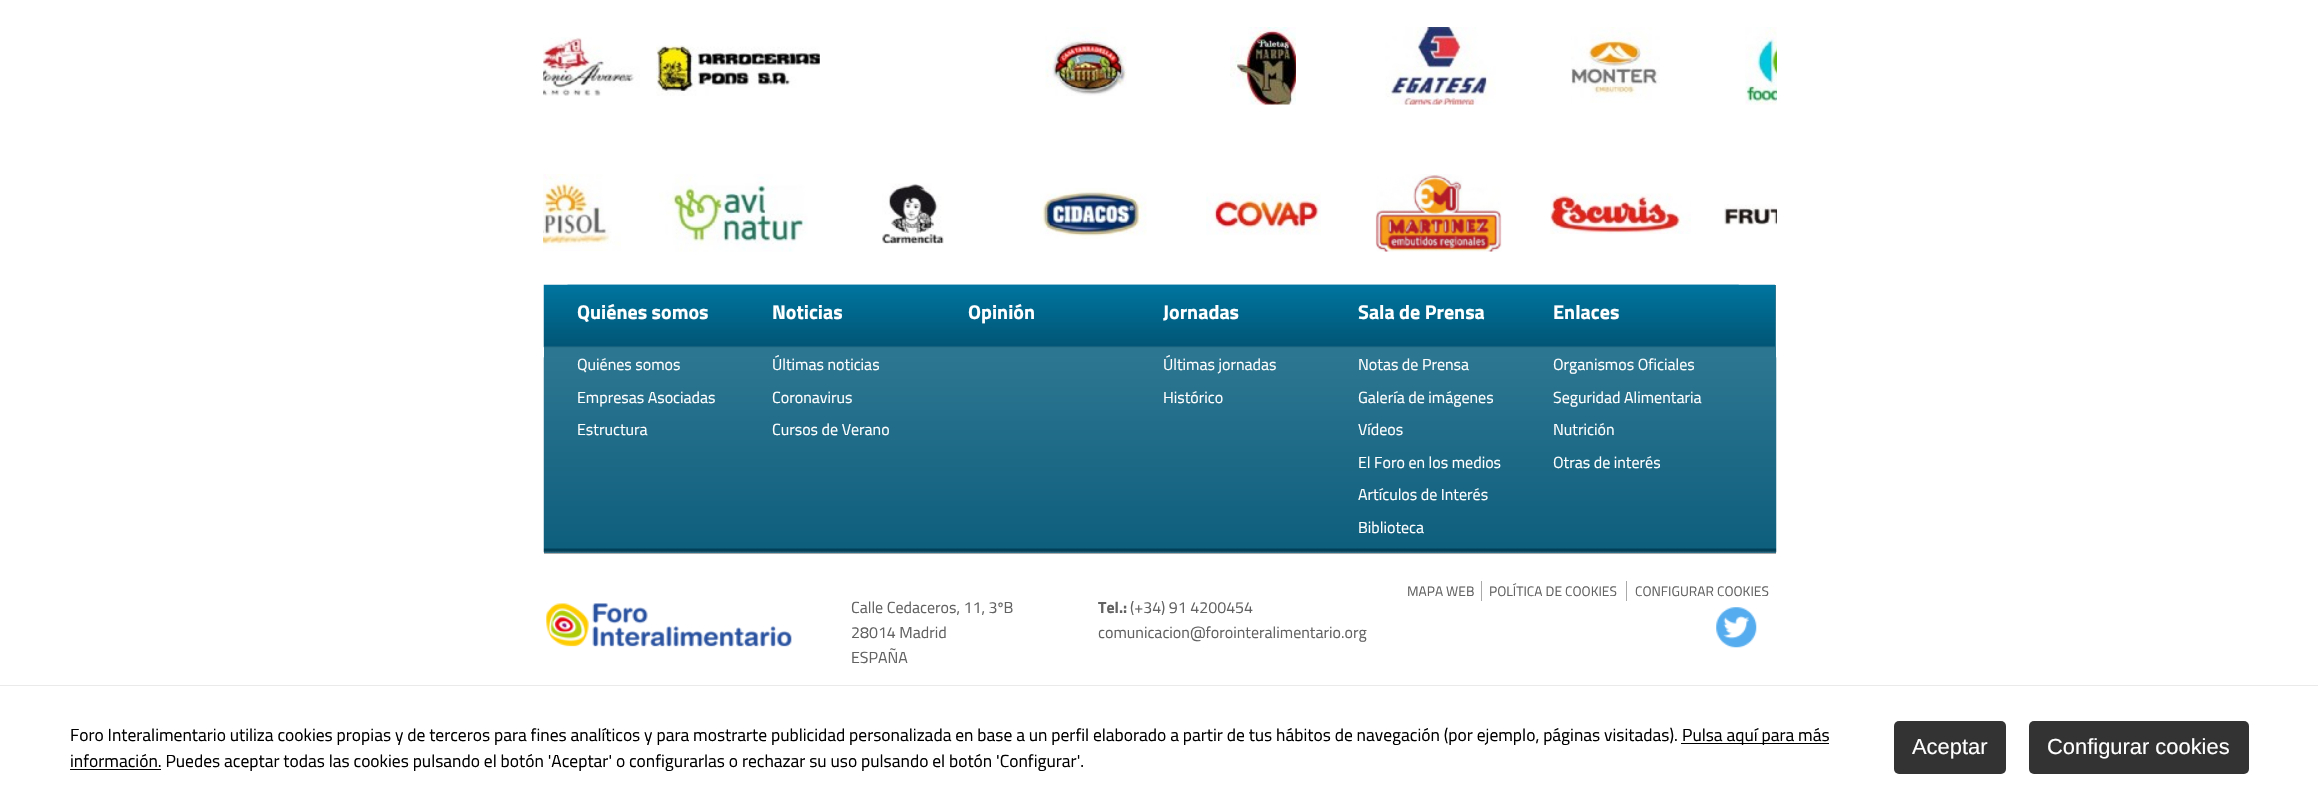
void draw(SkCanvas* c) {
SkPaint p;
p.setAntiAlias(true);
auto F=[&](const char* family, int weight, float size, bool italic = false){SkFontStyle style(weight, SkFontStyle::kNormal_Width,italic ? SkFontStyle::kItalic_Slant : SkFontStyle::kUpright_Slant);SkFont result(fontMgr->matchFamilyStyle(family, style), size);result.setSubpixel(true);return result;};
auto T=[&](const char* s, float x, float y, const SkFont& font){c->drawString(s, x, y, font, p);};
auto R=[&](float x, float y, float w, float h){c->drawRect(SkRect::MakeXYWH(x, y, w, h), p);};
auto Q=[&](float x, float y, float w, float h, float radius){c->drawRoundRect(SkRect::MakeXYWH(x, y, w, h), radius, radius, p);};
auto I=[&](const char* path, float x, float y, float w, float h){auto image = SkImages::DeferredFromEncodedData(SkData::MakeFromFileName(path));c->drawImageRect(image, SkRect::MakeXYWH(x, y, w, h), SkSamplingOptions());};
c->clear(0xffffffff);
I("1.png",543,37,97,59);
I("2.png",656,45,164,51);
I("3.png",1045,27,82,69);
I("4.png",1230,27,66,78);
I("5.png",1385,27,111,78);
I("6.png",1571,27,89,76);
I("7.png",1745,27,32,78);
I("8.png",543,174,78,77);
I("9.png",659,174,149,78);
I("10.png",882,183,62,61);
I("11.png",1040,188,107,51);
I("12.png",1206,193,115,42);
I("13.png",1375,174,127,78);
I("14.png",1550,193,141,41);
I("15.png",1724,204,53,21);
p.setColor(0xff2d7691);
R(544,285,1232,268);
I("16.png",543,357,1234,196);
p.setColor(0xffaaaaaa);
R(544,553,1232,1);
I("17.png",543,284,1232,64);
I("18.png",567,284,196,1);
auto f1 = F("Titillium Web",700,20);
p.setColor(0xffffffff);
T("Quiénes somos",577,319,f1);
auto f2 = F("Titillium Web",400,16);
T("Quiénes somos",577,370,f2);
T("Empresas Asociadas",577,403,f2);
T("Estructura",577,435,f2);
I("19.png",762,284,197,1);
T("Noticias",772,319,f1);
T("Últimas noticias",772,370,f2);
T("Coronavirus",772,403,f2);
T("Cursos de Verano",772,435,f2);
I("20.png",958,284,196,1);
T("Opinión",968,319,f1);
I("20.png",1153,284,196,1);
T("Jornadas",1163,319,f1);
T("Últimas jornadas",1163,370,f2);
T("Histórico",1163,403,f2);
I("20.png",1348,284,196,1);
T("Sala de Prensa",1358,319,f1);
T("Notas de Prensa",1358,370,f2);
T("Galería de imágenes",1358,403,f2);
T("Vídeos",1358,435,f2);
T("El Foro en los medios",1358,468,f2);
T("Artículos de Interés",1358,500,f2);
T("Biblioteca",1358,533,f2);
I("20.png",1543,284,196,1);
T("Enlaces",1553,319,f1);
T("Organismos Oficiales",1553,370,f2);
T("Seguridad Alimentaria",1553,403,f2);
T("Nutrición",1553,435,f2);
T("Otras de interés",1553,468,f2);
auto f3 = F("Titillium Web",400,13.75);
p.setColor(0xff626262);
T("MAPA WEB",1407,596,f3);
T("POLÍTICA DE COOKIES",1489,596,f3);
p.setColor(0xffaaaaaa);
R(1481,581,1,20);
p.setColor(0xff626262);
T("CONFIGURAR COOKIES",1635,596,f3);
p.setColor(0xffaaaaaa);
R(1626,581,1,20);
I("21.png",546,603,246,44);
p.setColor(0xff626262);
T("Calle Cedaceros, 11, 3ºB",851,613,f2);
T("28014 Madrid",851,638,f2);
T("ESPAÑA",851,663,f2);
auto f4 = F("Titillium Web",700,16);
T("Tel.:",1098,613,f4);
T("(+34) 91 4200454",1130,613,f2);
T("comunicacion@forointeralimentario.org",1098,638,f2);
I("22.png",1716,607,41,41);
p.setColor(0xffeaeaea);
R(0,685,2318,1);
auto f5 = F("Titillium Web",400,17.5);
p.setColor(0xff000000);
T("Foro Interalimentario utiliza cookies propias y de terceros para fines analíticos y para mostrarte publicidad personalizada en base a un perfil elaborado a partir de tus hábitos de navegación (por ejemplo, páginas visitadas).",70,741,f5);
R(1681,743,148,1);
T("Pulsa aquí para más",1682,741,f5);
R(70,769,91,1);
T("información. Puedes aceptar todas las cookies pulsando el botón 'Aceptar' o configurarlas o rechazar su uso pulsando el botón 'Configurar'.",70,767,f5);
p.setColor(0xff333333);
Q(1894,721,112,53,5);
auto f6 = F("Liberation Sans",400,21.9);
p.setColor(0xffffffff);
T("Aceptar",1912,754,f6);
p.setColor(0xff333333);
Q(2029,721,220,53,5);
p.setColor(0xffffffff);
T("Configurar cookies",2047,754,f6);
}
